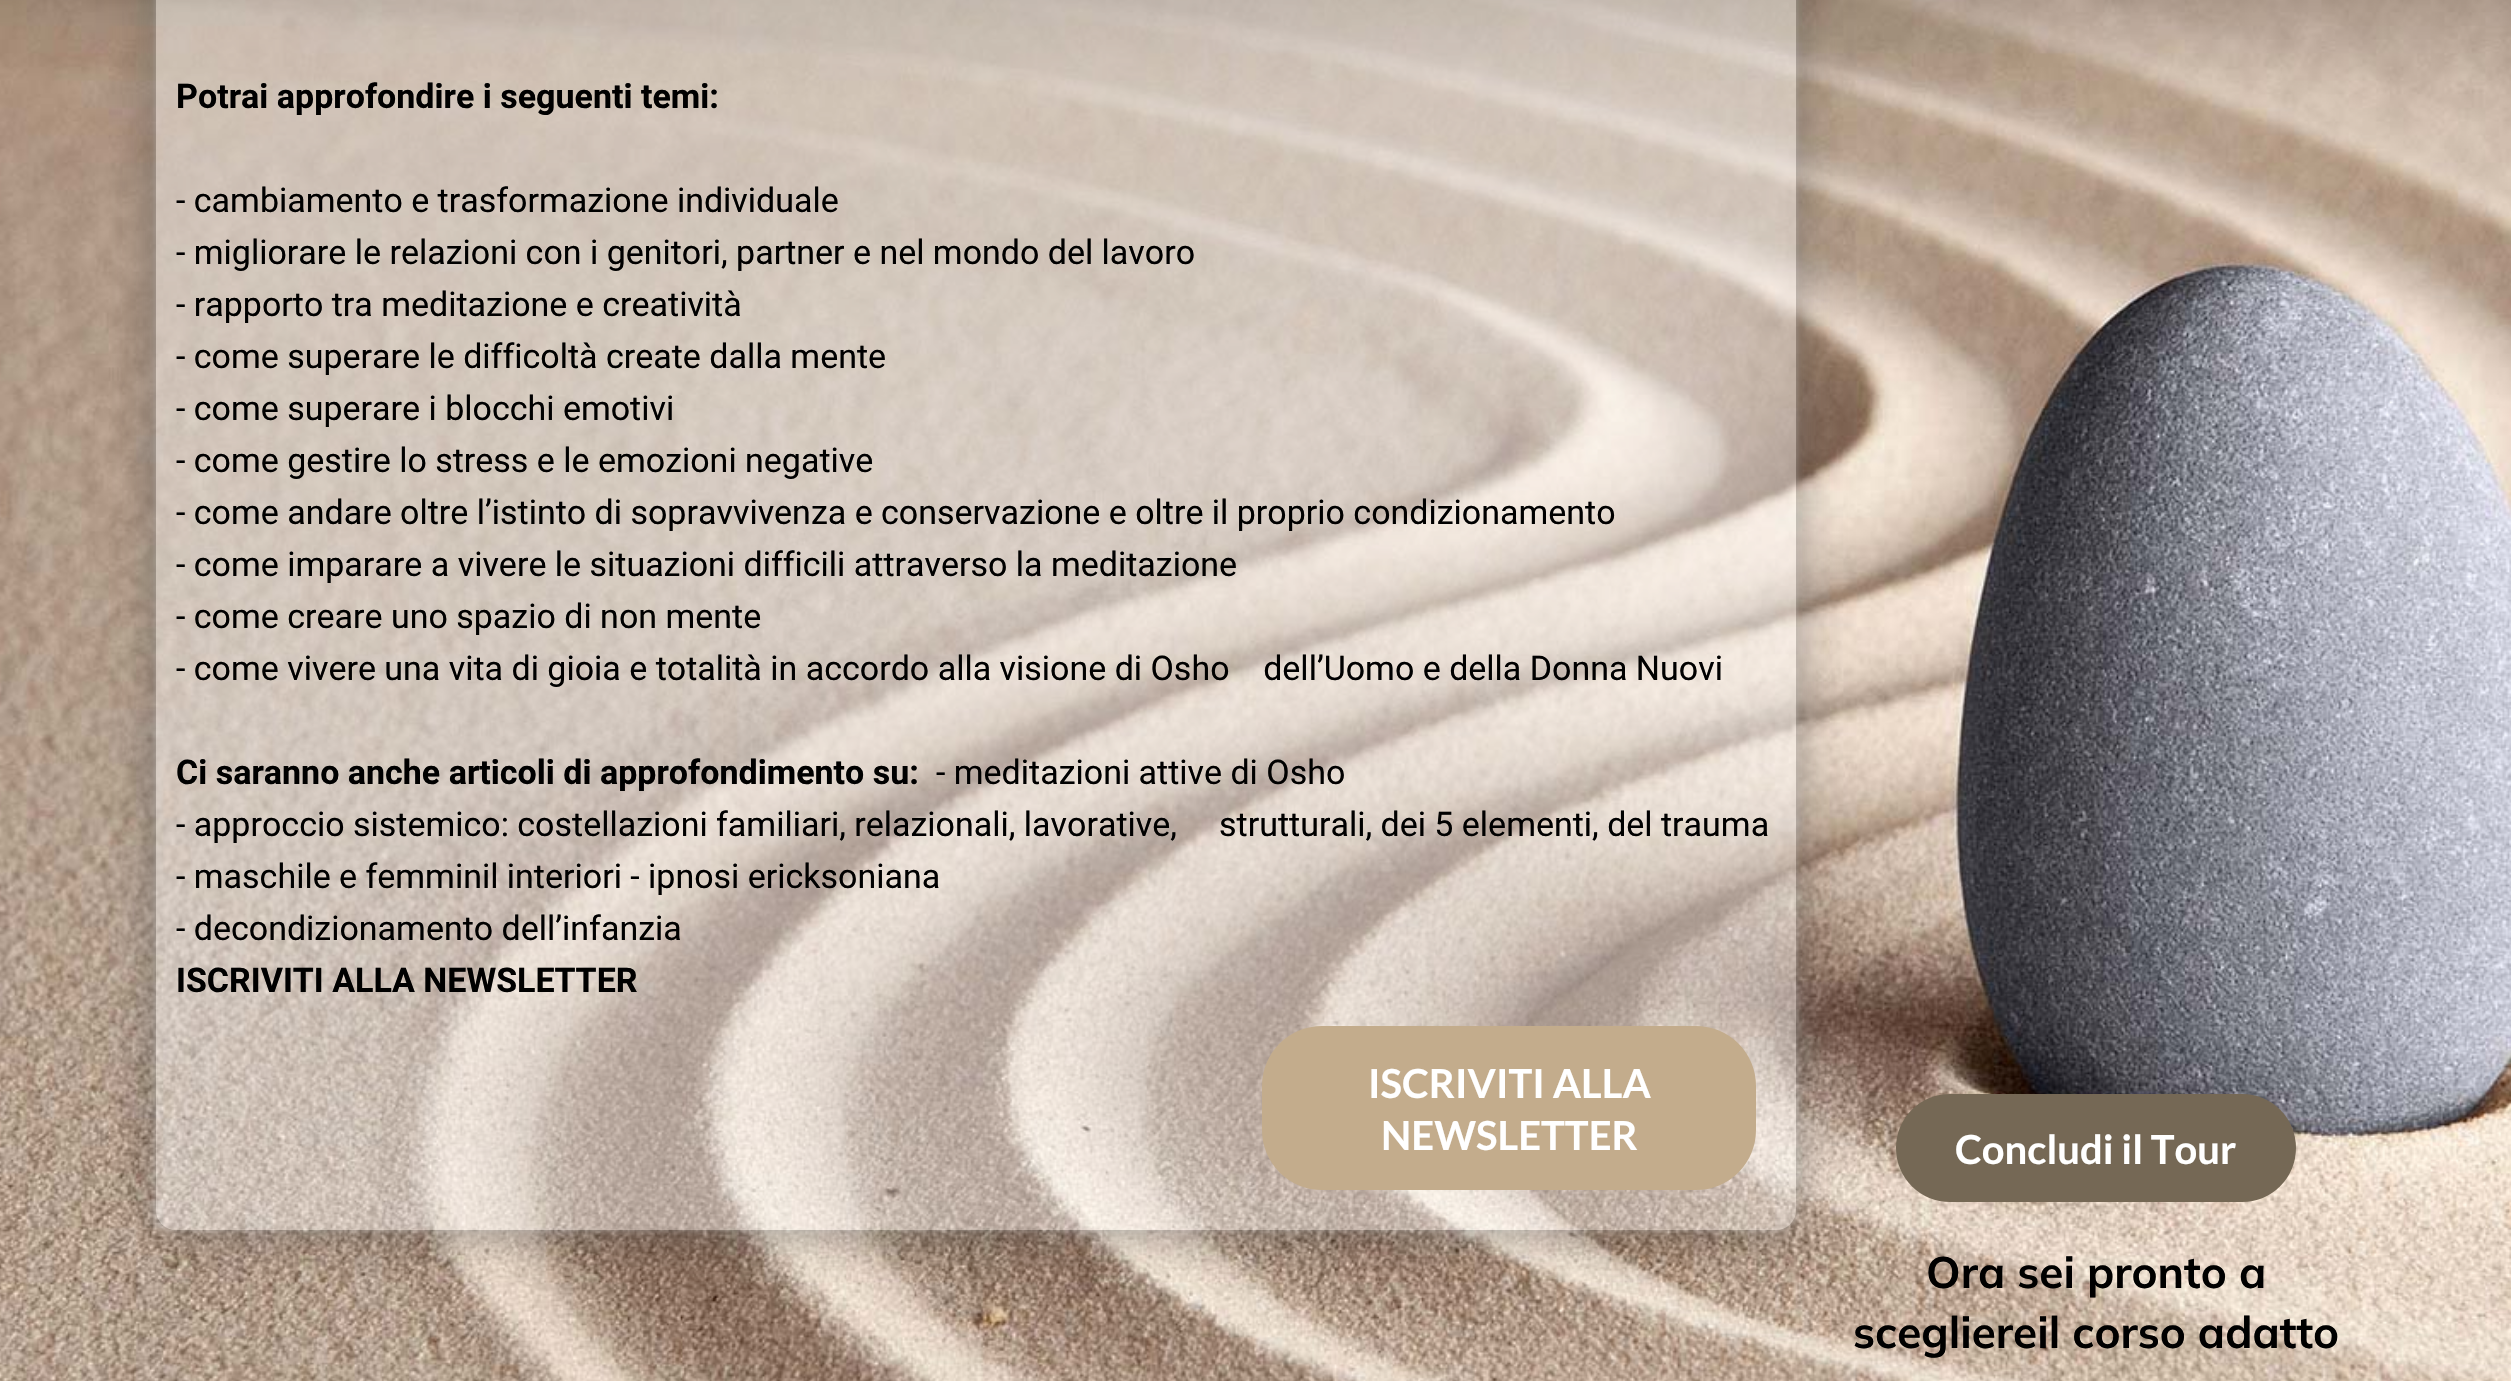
void draw(SkCanvas* c) {
SkPaint p;
p.setAntiAlias(true);
auto F=[&](const char* family, int weight, float size, bool italic = false){SkFontStyle style(weight, SkFontStyle::kNormal_Width,italic ? SkFontStyle::kItalic_Slant : SkFontStyle::kUpright_Slant);SkFont result(fontMgr->matchFamilyStyle(family, style), size);result.setSubpixel(true);return result;};
auto T=[&](const char* s, float x, float y, const SkFont& font){c->drawString(s, x, y, font, p);};
auto Q=[&](float x, float y, float w, float h, float radius){c->drawRoundRect(SkRect::MakeXYWH(x, y, w, h), radius, radius, p);};
auto I=[&](const char* path, float x, float y, float w, float h){auto image = SkImages::DeferredFromEncodedData(SkData::MakeFromFileName(path));c->drawImageRect(image, SkRect::MakeXYWH(x, y, w, h), SkSamplingOptions());};
auto P=[&](const char* data, bool evenOdd = false){SkPath result = *SkParsePath::FromSVGString(data);if (evenOdd) result.setFillType(SkPathFillType::kEvenOdd);return result;};
c->clear(0xffffffff);
I("1.png",0,0,2511,1381);
c->save();
c->clipPath(P("M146 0h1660v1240h-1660zm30-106h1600c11 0 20 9 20 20v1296c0 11-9 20-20 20h-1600c-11 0-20-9-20-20v-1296c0-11 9-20 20-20z",true),true);
p.setColor(0x66ffffff);
p.setMaskFilter(SkMaskFilter::MakeBlur(kNormal_SkBlurStyle, 3));
c->drawRoundRect(SkRect::MakeXYWH(156,-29,1640,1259),20,20,p);
p.setMaskFilter(nullptr);
c->restore();
c->save();
c->clipPath(P("M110 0h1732v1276h-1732zm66-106h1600c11 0 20 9 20 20v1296c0 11-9 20-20 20h-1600c-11 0-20-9-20-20v-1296c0-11 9-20 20-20z",true),true);
p.setColor(0x33ffffff);
p.setMaskFilter(SkMaskFilter::MakeBlur(kNormal_SkBlurStyle, 15));
c->drawRoundRect(SkRect::MakeXYWH(156,-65,1640,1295),20,20,p);
p.setMaskFilter(nullptr);
c->restore();
c->save();
c->clipPath(P("M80 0h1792v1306h-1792zm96-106h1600c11 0 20 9 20 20v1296c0 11-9 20-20 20h-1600c-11 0-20-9-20-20v-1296c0-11 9-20 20-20z",true),true);
p.setColor(0x66000000);
p.setMaskFilter(SkMaskFilter::MakeBlur(kNormal_SkBlurStyle, 25));
c->drawRoundRect(SkRect::MakeXYWH(156,-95,1640,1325),20,20,p);
p.setMaskFilter(nullptr);
c->restore();
p.setColor(0x66ffffff);
Q(156,-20,1640,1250,20);
auto f1 = F("Roboto",700,34);
p.setColor(0xff000000);
T("Potrai approfondire i seguenti temi:",176,108,f1);
auto f2 = F("Roboto",400,34);
T("- cambiamento e trasformazione individuale",176,212,f2);
T("- migliorare le relazioni con i genitori, partner e nel mondo del lavoro",176,264,f2);
T("- rapporto tra meditazione e creatività",176,316,f2);
T("- come superare le difficoltà create dalla mente",176,368,f2);
T("- come superare i blocchi emotivi",176,420,f2);
T("- come gestire lo stress e le emozioni negative",176,472,f2);
T("- come andare oltre l’istinto di sopravvivenza e conservazione e oltre il proprio condizionamento",176,524,f2);
T("- come imparare a vivere le situazioni difficili attraverso la meditazione",176,576,f2);
T("- come creare uno spazio di non mente",176,628,f2);
T("- come vivere una vita di gioia e totalità in accordo alla visione di Osho    dell’Uomo e della Donna Nuovi",176,680,f2);
T("Ci saranno anche articoli di approfondimento su:",176,784,f1);
T("- meditazioni attive di Osho",936,784,f2);
T("- approccio sistemico: costellazioni familiari, relazionali, lavorative,     strutturali, dei 5 elementi, del trauma",176,836,f2);
T("- maschile e femminil interiori - ipnosi ericksoniana",176,888,f2);
T("- decondizionamento dell’infanzia",176,940,f2);
T("ISCRIVITI ALLA NEWSLETTER",176,992,f1);
p.setColor(0xffc3ac8c);
Q(1262,1026,494,164,60);
auto f3 = F("Lato",700,40);
p.setColor(0xffffffff);
T("ISCRIVITI ALLA",1368,1098,f3);
T("NEWSLETTER",1381,1150,f3);
p.setColor(0xff756855);
Q(1896,1094,400,108,54);
p.setColor(0xffffffff);
T("Concludi il Tour",1955,1164,f3);
auto f4 = F("Mulish",700,44);
p.setColor(0xff000000);
T("Ora sei pronto a",1926,1288,f4);
T("scegliereil corso adatto",1853,1348,f4);
}
